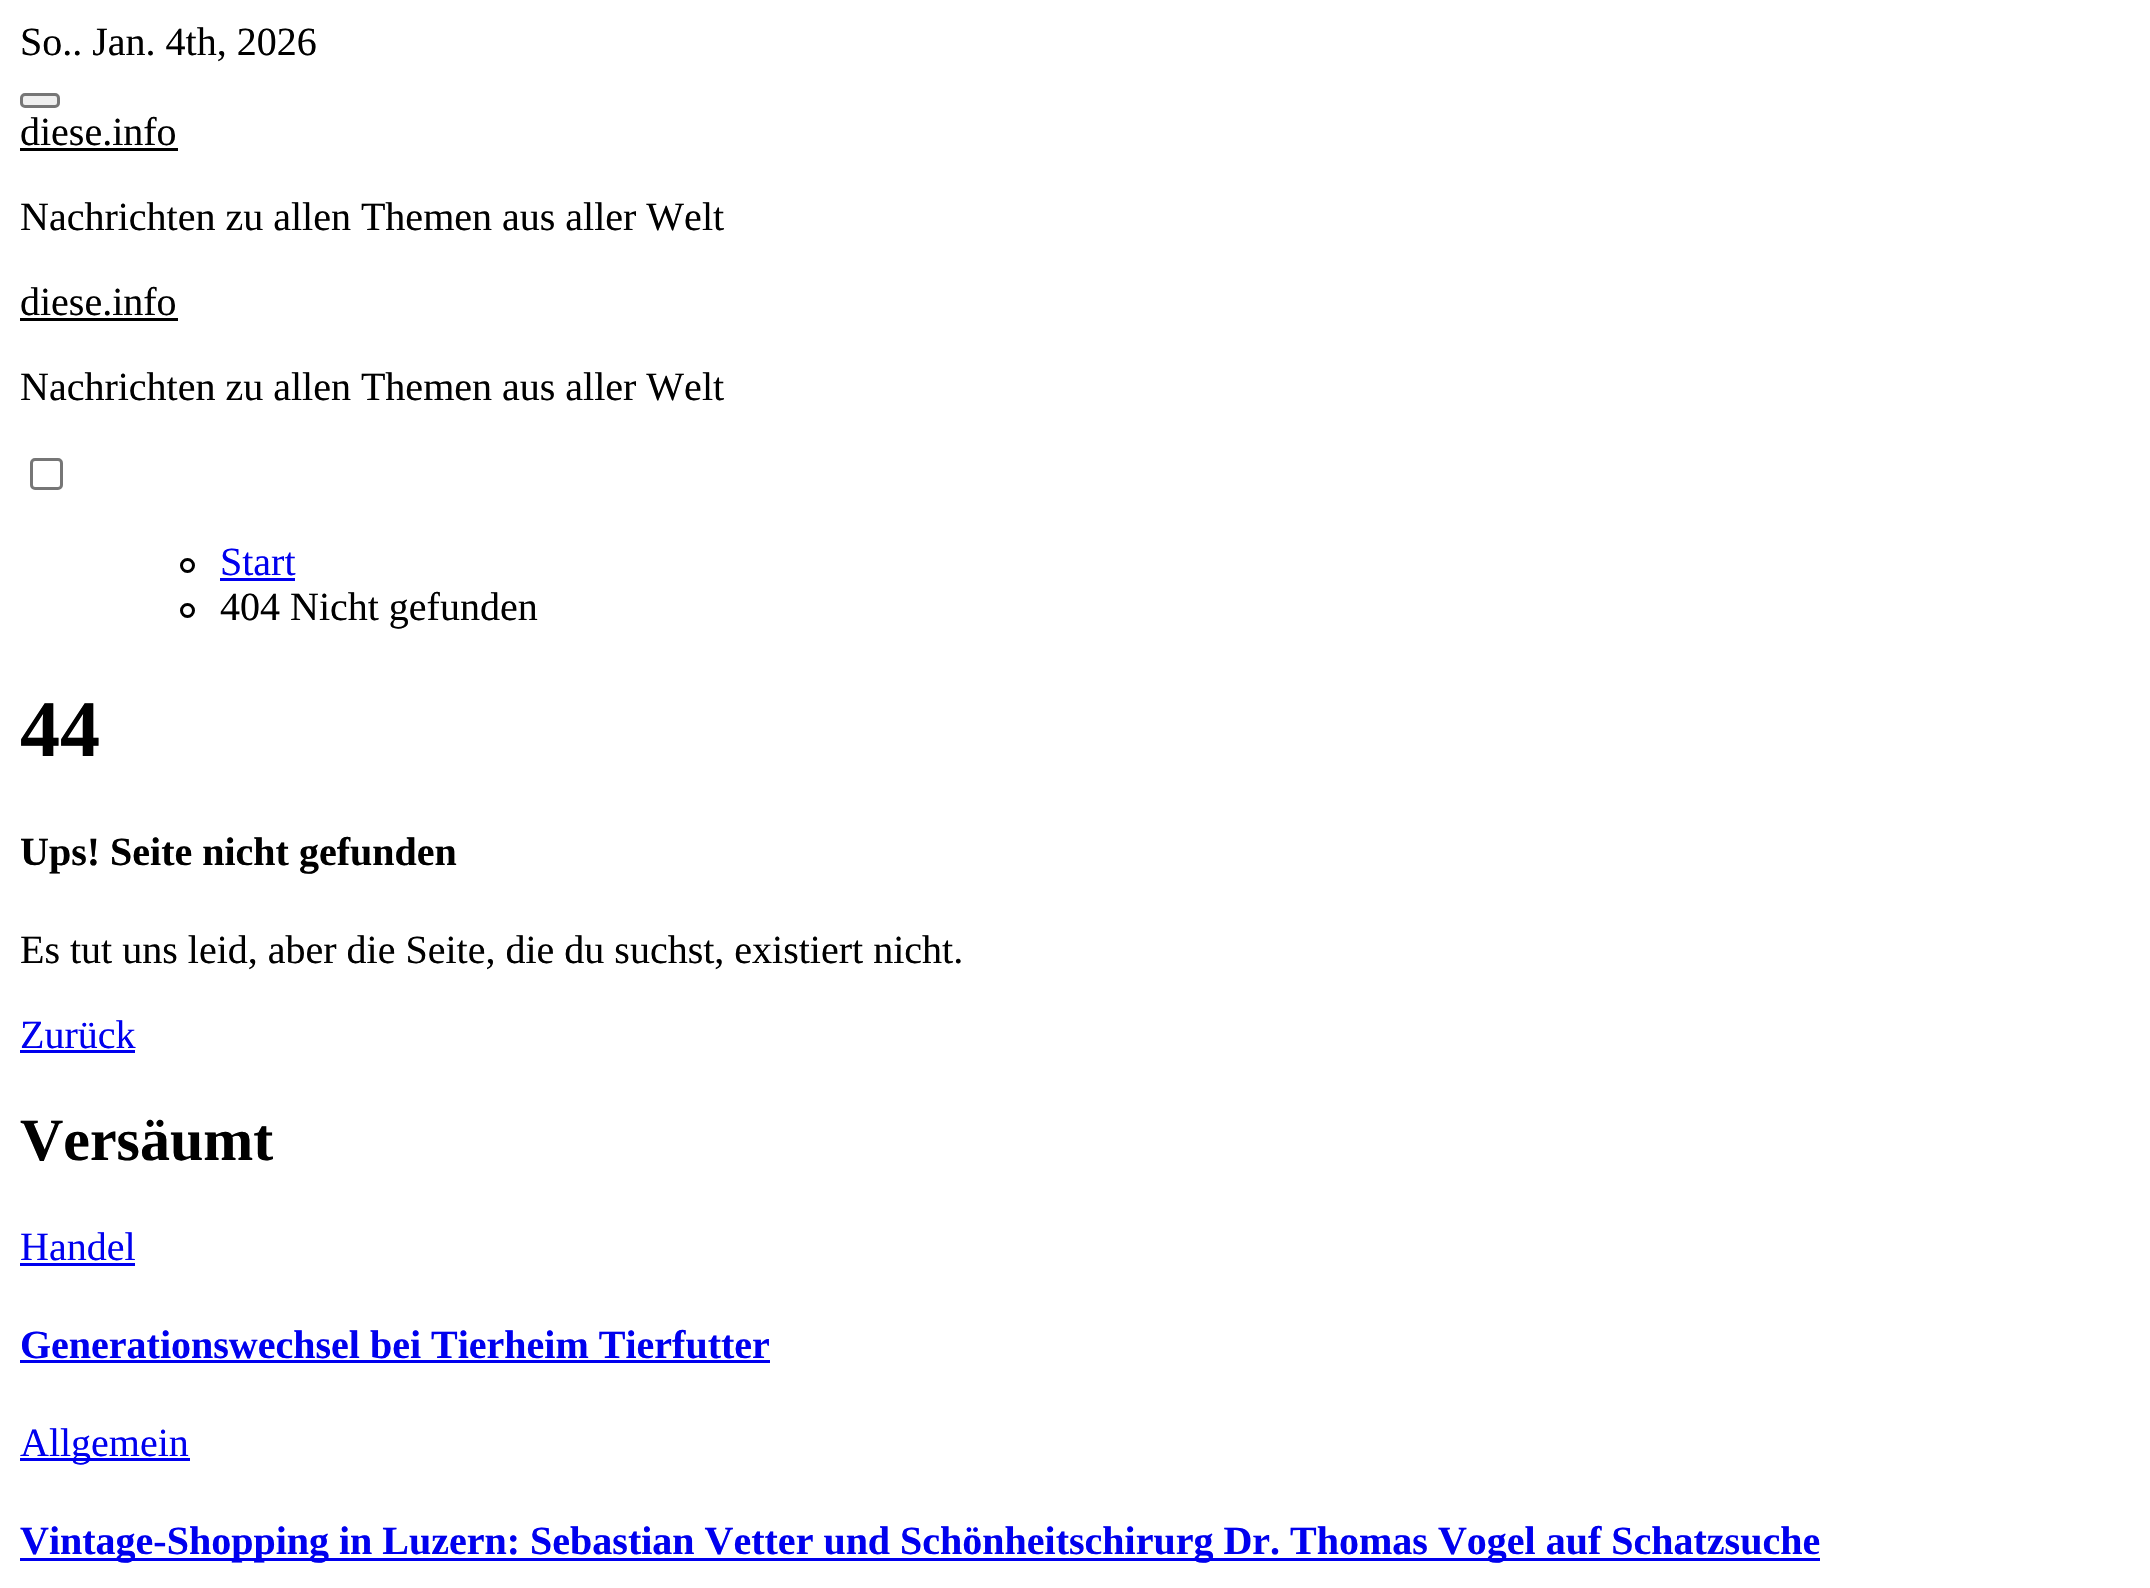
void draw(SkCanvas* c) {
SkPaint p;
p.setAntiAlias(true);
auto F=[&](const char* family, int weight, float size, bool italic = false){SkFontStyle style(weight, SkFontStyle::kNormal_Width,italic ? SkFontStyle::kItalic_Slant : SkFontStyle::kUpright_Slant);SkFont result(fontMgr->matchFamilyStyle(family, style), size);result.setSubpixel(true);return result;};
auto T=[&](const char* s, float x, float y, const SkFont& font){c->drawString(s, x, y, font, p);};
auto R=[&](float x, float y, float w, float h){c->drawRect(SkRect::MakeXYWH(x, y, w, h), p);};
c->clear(0xffffffff);
auto f1 = F("Liberation Serif",400,40);
p.setColor(0xff000000);
T("So.. Jan. 4th, 2026",20,55,f1);
p.setColor(0xffefefef);
c->drawRoundRect(SkRect::MakeXYWH(21.5,94.5,37,12),3.5,3.5,p);
p.setStroke(true);
p.setStrokeWidth(3);
p.setColor(0xff767676);
c->drawRoundRect(SkRect::MakeXYWH(21.5,94.5,37,12),3.5,3.5,p);
p.setStroke(false);
p.setColor(0xff000000);
T("diese.info",20,145,f1);
R(20,148,158,3);
T("Nachrichten zu allen Themen aus aller Welt",20,230,f1);
T("diese.info",20,315,f1);
R(20,318,158,3);
T("Nachrichten zu allen Themen aus aller Welt",20,400,f1);
p.setStroke(true);
p.setColor(0xff767676);
c->drawRoundRect(SkRect::MakeXYWH(31.5,459.5,30,29),3.5,3.5,p);
p.setColor(0xff000000);
c->drawCircle(187.5,565.5,6,p);
p.setStroke(false);
p.setColor(0xff0000ee);
T("Start",220,575,f1);
R(220,578,75,3);
p.setStroke(true);
p.setColor(0xff000000);
c->drawCircle(187.5,610.5,6,p);
p.setStroke(false);
T("404 Nicht gefunden",220,620,f1);
auto f2 = F("Liberation Serif",700,80);
T("44",20,756,f2);
auto f3 = F("Liberation Serif",700,40);
T("Ups! Seite nicht gefunden",20,865,f3);
T("Es tut uns leid, aber die Seite, die du suchst, existiert nicht.",20,963,f1);
p.setColor(0xff0000ee);
T("Zurück",20,1048,f1);
R(20,1050,115,3);
auto f4 = F("Liberation Serif",700,60);
p.setColor(0xff000000);
T("Versäumt",20,1160,f4);
p.setColor(0xff0000ee);
T("Handel",20,1260,f1);
R(20,1263,115,3);
T("Generationswechsel bei Tierheim Tierfutter",20,1358,f3);
R(20,1360,750,3);
R(20,1458,170,3);
T("Allgemein",20,1456,f1);
R(20,1558,1800,3);
T("Vintage-Shopping in Luzern: Sebastian Vetter und Schönheitschirurg Dr. Thomas Vogel auf Schatzsuche",20,1554,f3);
}
